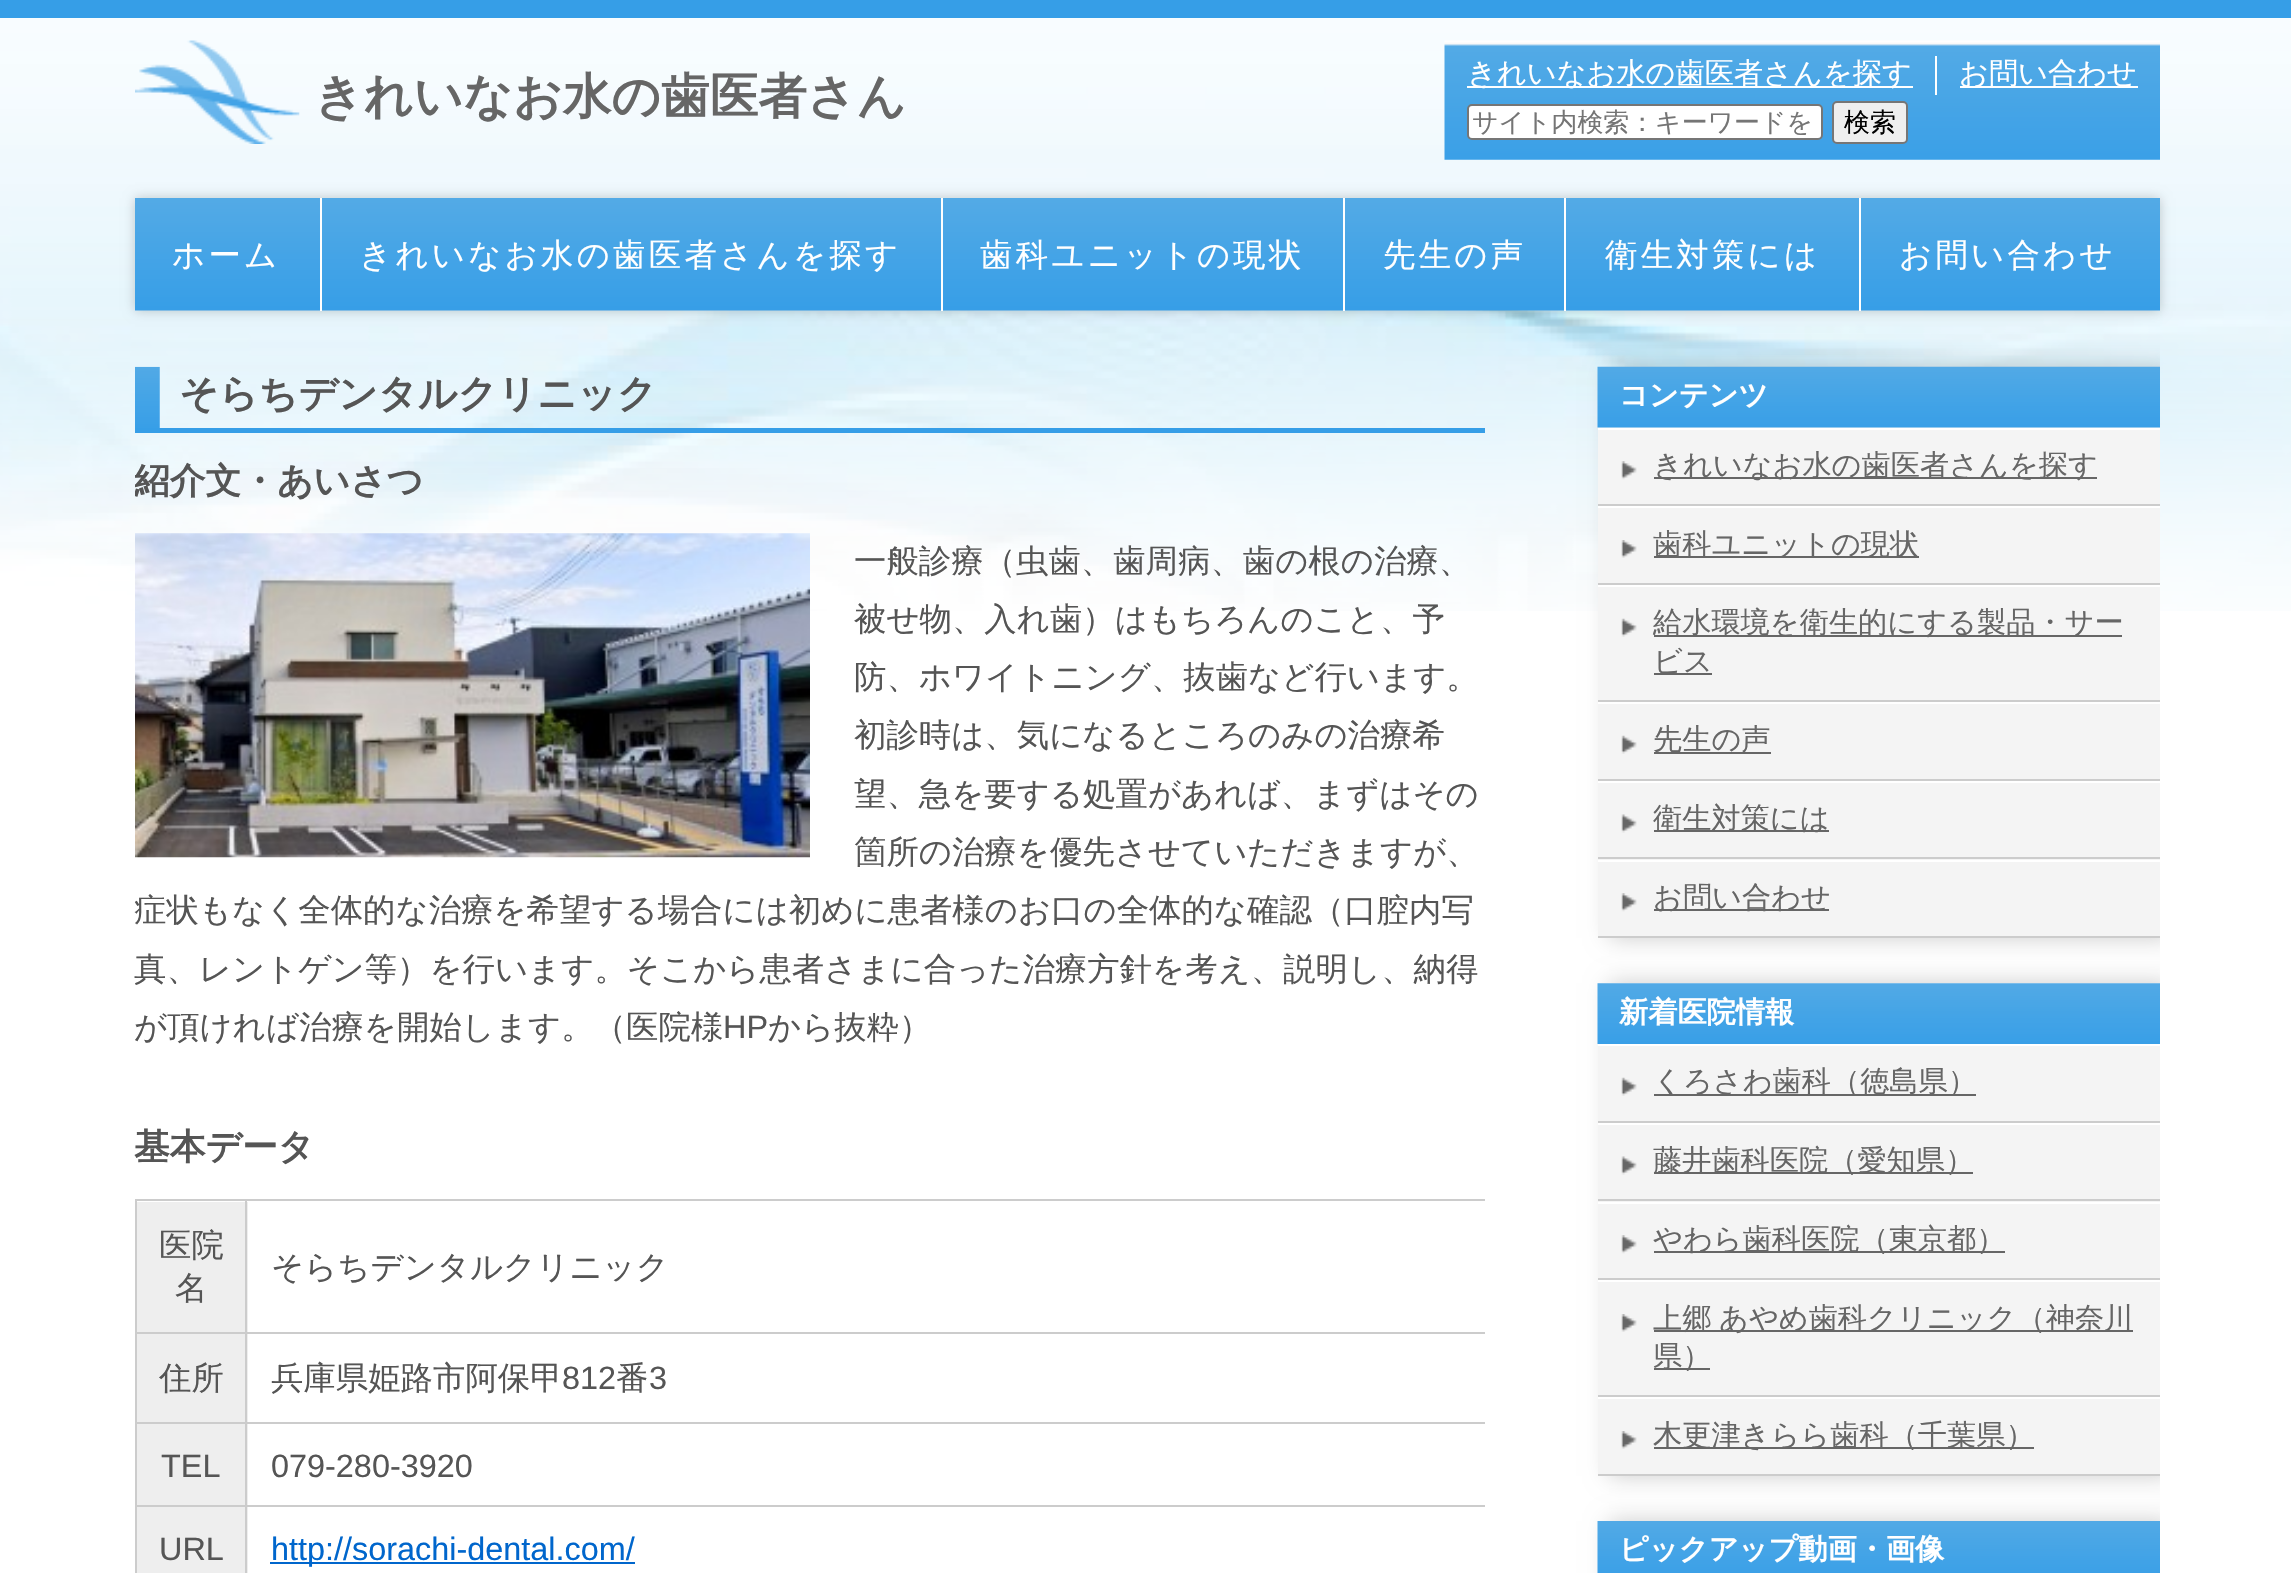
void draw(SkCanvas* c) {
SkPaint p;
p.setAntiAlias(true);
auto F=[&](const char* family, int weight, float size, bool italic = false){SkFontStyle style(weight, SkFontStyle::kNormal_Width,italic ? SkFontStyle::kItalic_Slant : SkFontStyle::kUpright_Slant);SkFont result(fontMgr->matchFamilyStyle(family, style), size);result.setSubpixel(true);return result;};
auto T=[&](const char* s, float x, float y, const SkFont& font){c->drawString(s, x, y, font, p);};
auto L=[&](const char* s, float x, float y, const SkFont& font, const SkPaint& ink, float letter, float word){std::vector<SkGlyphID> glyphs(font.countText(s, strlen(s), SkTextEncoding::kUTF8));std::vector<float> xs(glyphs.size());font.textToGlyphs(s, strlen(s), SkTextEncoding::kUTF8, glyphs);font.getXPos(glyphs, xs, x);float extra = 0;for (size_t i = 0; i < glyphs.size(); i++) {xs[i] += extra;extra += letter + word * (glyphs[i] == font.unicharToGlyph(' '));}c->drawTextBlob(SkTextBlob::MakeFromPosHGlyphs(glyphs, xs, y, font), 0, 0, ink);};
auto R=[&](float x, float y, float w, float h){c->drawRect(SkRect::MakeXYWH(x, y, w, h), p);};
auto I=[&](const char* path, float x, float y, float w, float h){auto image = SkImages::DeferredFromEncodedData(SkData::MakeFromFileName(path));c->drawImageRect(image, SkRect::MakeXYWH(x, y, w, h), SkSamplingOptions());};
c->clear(0xffffffff);
I("1.png",0,18,2291,593);
p.setColor(0xff369ee7);
R(0,0,2291,18);
I("2.png",135,40,165,104);
auto f1 = F("WenQuanYi Zen Hei",700,48.6);
p.setColor(0xff666666);
T("きれいなお水の歯医者さん",314,113,f1);
I("3.png",1444,40,716,120);
p.setColor(0xffffffff);
R(1935,56,2,39);
R(1467,86,446,2);
auto f2 = F("WenQuanYi Zen Hei",500,29.2);
T("きれいなお水の歯医者さんを探す",1467,83,f2);
R(1960,86,178,2);
T("お問い合わせ",1959,83,f2);
c->drawRoundRect(SkRect::MakeXYWH(1468,105,354,34),4,4,p);
p.setStroke(true);
p.setStrokeWidth(2);
p.setColor(0xff767676);
c->drawRoundRect(SkRect::MakeXYWH(1468,105,354,34),4,4,p);
c->save();
c->clipRect(SkRect::MakeXYWH(1472,108,346,27));
auto f3 = F("WenQuanYi Zen Hei",500,25.9);
p.setStroke(false);
p.setColor(0xff757575);
T("サイト内検索：キーワードを",1472,131,f3);
c->restore();
p.setColor(0xffefefef);
c->drawRoundRect(SkRect::MakeXYWH(1833,102,74,41),4,4,p);
p.setStroke(true);
p.setColor(0xff767676);
c->drawRoundRect(SkRect::MakeXYWH(1833,102,74,41),4,4,p);
p.setStroke(false);
p.setColor(0xff000000);
T("検索",1844,131,f3);
p.setColor(0x33000000);
p.setMaskFilter(SkMaskFilter::MakeBlur(kNormal_SkBlurStyle, 5.5));
c->drawRect(SkRect::MakeXYWH(135,198,2025,113),p);
p.setMaskFilter(nullptr);
I("4.png",135,198,2025,113);
p.setColor(0xffffffff);
R(320,198,2,113);
auto f4 = F("WenQuanYi Zen Hei",500,32.4);
L("ホーム",172,266,f4,p,3.25,0);
R(941,198,2,113);
L("きれいなお水の歯医者さんを探す",359,266,f4,p,3.25,0);
R(1343,198,2,113);
L("歯科ユニットの現状",980,266,f4,p,3.25,0);
R(1564,198,2,113);
L("先生の声",1383,266,f4,p,3.25,0);
R(1859,198,2,113);
L("衛生対策には",1605,266,f4,p,3.25,0);
L("お問い合わせ",1899,266,f4,p,3.25,0);
I("5.png",135,366,25,62);
p.setColor(0xff369ee7);
R(135,428,1350,5);
auto f5 = F("WenQuanYi Zen Hei",700,38.9);
p.setColor(0xff555555);
T("そらちデンタルクリニック",179,407,f5);
c->save();
c->clipRect(SkRect::MakeXYWH(135,459,1350,621));
auto f6 = F("WenQuanYi Zen Hei",700,35.75);
T("紹介文・あいさつ",134,493,f6);
c->restore();
I("6.png",135,533,675,325);
T("一般診療（虫歯、歯周病、歯の根の治療、",854,572,f4);
T("被せ物、入れ歯）はもちろんのこと、予",854,630,f4);
T("防、ホワイトニング、抜歯など行います。",854,688,f4);
T("初診時は、気になるところのみの治療希",854,746,f4);
T("望、急を要する処置があれば、まずはその",854,805,f4);
T("箇所の治療を優先させていただきますが、",854,863,f4);
T("症状もなく全体的な治療を希望する場合には初めに患者様のお口の全体的な確認（口腔内写",134,921,f4);
T("真、レントゲン等）を行います。そこから患者さまに合った治療方針を考え、説明し、納得",134,980,f4);
T("が頂ければ治療を開始します。（医院様",134,1038,f4);
auto f7 = F("Liberation Sans",400,32.4);
T("HP",723,1038,f7);
T("から抜粋）",768,1038,f4);
T("基本データ",134,1159,f6);
p.setColor(0xffcccccc);
R(135,1199,1350,2);
R(135,1199,2,374);
p.setColor(0xffeeeeee);
R(137,1202,111,130);
p.setColor(0xff555555);
T("医院",159,1256,f4);
T("名",175,1299,f4);
p.setColor(0xffcccccc);
R(245,1332,1240,2);
p.setColor(0xffeeeeee);
R(137,1334,111,88);
p.setColor(0xffcccccc);
R(245,1422,1240,2);
p.setColor(0xffeeeeee);
R(137,1424,111,149);
p.setColor(0xffcccccc);
R(245,1505,1240,2);
R(245,1505,2,68);
R(135,1505,113,2);
R(245,1422,2,86);
R(135,1422,113,2);
R(245,1332,2,92);
R(135,1332,113,2);
R(245,1199,2,135);
p.setColor(0xff555555);
T("そらちデンタルクリニック",271,1278,f4);
T("住所",159,1389,f4);
T("兵庫県姫路市阿保甲",271,1389,f4);
T("812",562,1389,f7);
T("番",616,1389,f4);
T("3",649,1389,f7);
T("TEL",161,1477,f7);
T("079-280-3920",271,1477,f7);
T("URL",159,1560,f7);
p.setColor(0xff0066cc);
R(270,1562,365,2);
T("http://sorachi-dental.com/",271,1560,f7);
c->save();
c->clipRect(SkRect::MakeXYWH(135,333,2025,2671));
p.setColor(0x33000000);
p.setMaskFilter(SkMaskFilter::MakeBlur(kNormal_SkBlurStyle, 11));
c->drawRect(SkRect::MakeXYWH(1609,367,562,571),p);
p.setMaskFilter(nullptr);
c->restore();
p.setColor(0xfff4f4f4);
R(1598,427,562,509);
I("7.png",1597,366,563,62);
auto f8 = F("WenQuanYi Zen Hei",700,29.2);
p.setColor(0xffffffff);
T("コンテンツ",1619,405,f8);
I("8.png",1621,461,16,19);
R(1598,428,562,2);
p.setColor(0xffcccccc);
R(1598,504,562,2);
p.setColor(0xff666666);
R(1654,477,443,2);
T("きれいなお水の歯医者さんを探す",1653,475,f2);
I("9.png",1621,540,16,18);
p.setColor(0xffffffff);
R(1598,506,562,2);
p.setColor(0xffcccccc);
R(1598,583,562,2);
p.setColor(0xff666666);
R(1654,556,265,2);
T("歯科ユニットの現状",1653,554,f2);
I("10.png",1621,618,16,19);
p.setColor(0xffffffff);
R(1598,585,562,2);
p.setColor(0xffcccccc);
R(1598,700,562,2);
p.setColor(0xff666666);
R(1654,635,468,2);
T("給水環境を衛生的にする製品・サー",1653,632,f2);
R(1654,673,58,2);
T("ビス",1653,671,f2);
I("10.png",1621,735,16,19);
p.setColor(0xffffffff);
R(1598,702,562,2);
p.setColor(0xffcccccc);
R(1598,779,562,2);
p.setColor(0xff666666);
R(1654,752,117,2);
T("先生の声",1653,749,f2);
I("11.png",1621,814,16,19);
p.setColor(0xffffffff);
R(1598,781,562,2);
p.setColor(0xffcccccc);
R(1598,857,562,2);
p.setColor(0xff666666);
R(1654,830,175,2);
T("衛生対策には",1653,828,f2);
I("8.png",1621,893,16,19);
p.setColor(0xffffffff);
R(1598,860,562,2);
p.setColor(0xffcccccc);
R(1598,936,562,2);
p.setColor(0xff666666);
R(1654,909,175,2);
T("お問い合わせ",1653,907,f2);
c->save();
c->clipRect(SkRect::MakeXYWH(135,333,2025,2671));
p.setColor(0x33000000);
p.setMaskFilter(SkMaskFilter::MakeBlur(kNormal_SkBlurStyle, 11));
c->drawRect(SkRect::MakeXYWH(1609,983,562,493),p);
p.setMaskFilter(nullptr);
c->restore();
p.setColor(0xfff4f4f4);
R(1598,983,562,491);
I("12.png",1597,983,563,61);
p.setColor(0xffffffff);
T("新着医院情報",1619,1022,f8);
I("10.png",1621,1077,16,19);
R(1598,1044,562,2);
p.setColor(0xffcccccc);
R(1598,1121,562,2);
p.setColor(0xff666666);
R(1654,1094,322,2);
T("くろさわ歯科（徳島県）",1653,1091,f2);
I("13.png",1621,1156,16,19);
p.setColor(0xffffffff);
R(1598,1123,562,2);
p.setColor(0xffcccccc);
R(1598,1199,562,2);
p.setColor(0xff666666);
R(1654,1172,319,2);
T("藤井歯科医院（愛知県）",1653,1170,f2);
I("8.png",1621,1235,16,19);
p.setColor(0xffffffff);
R(1598,1202,562,2);
p.setColor(0xffcccccc);
R(1598,1278,562,2);
p.setColor(0xff666666);
R(1654,1251,351,2);
T("やわら歯科医院（東京都）",1653,1249,f2);
I("9.png",1621,1314,16,18);
p.setColor(0xffffffff);
R(1598,1280,562,2);
p.setColor(0xffcccccc);
R(1598,1395,562,2);
p.setColor(0xff666666);
R(1654,1330,479,2);
T("上郷",1653,1328,f2);
T("あやめ歯科クリニック（神奈川",1719,1328,f2);
R(1654,1368,56,2);
T("県）",1653,1366,f2);
I("9.png",1621,1431,16,18);
p.setColor(0xffffffff);
R(1598,1397,562,2);
p.setColor(0xffcccccc);
R(1598,1474,562,2);
p.setColor(0xff666666);
R(1654,1447,380,2);
T("木更津きらら歯科（千葉県）",1653,1445,f2);
c->save();
c->clipRect(SkRect::MakeXYWH(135,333,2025,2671));
p.setColor(0x33000000);
p.setMaskFilter(SkMaskFilter::MakeBlur(kNormal_SkBlurStyle, 11));
c->drawRect(SkRect::MakeXYWH(1609,1521,562,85),p);
p.setMaskFilter(nullptr);
c->restore();
I("14.png",1597,1521,563,52);
p.setColor(0xffffffff);
T("ピックアップ動画・画像",1619,1559,f8);
}
